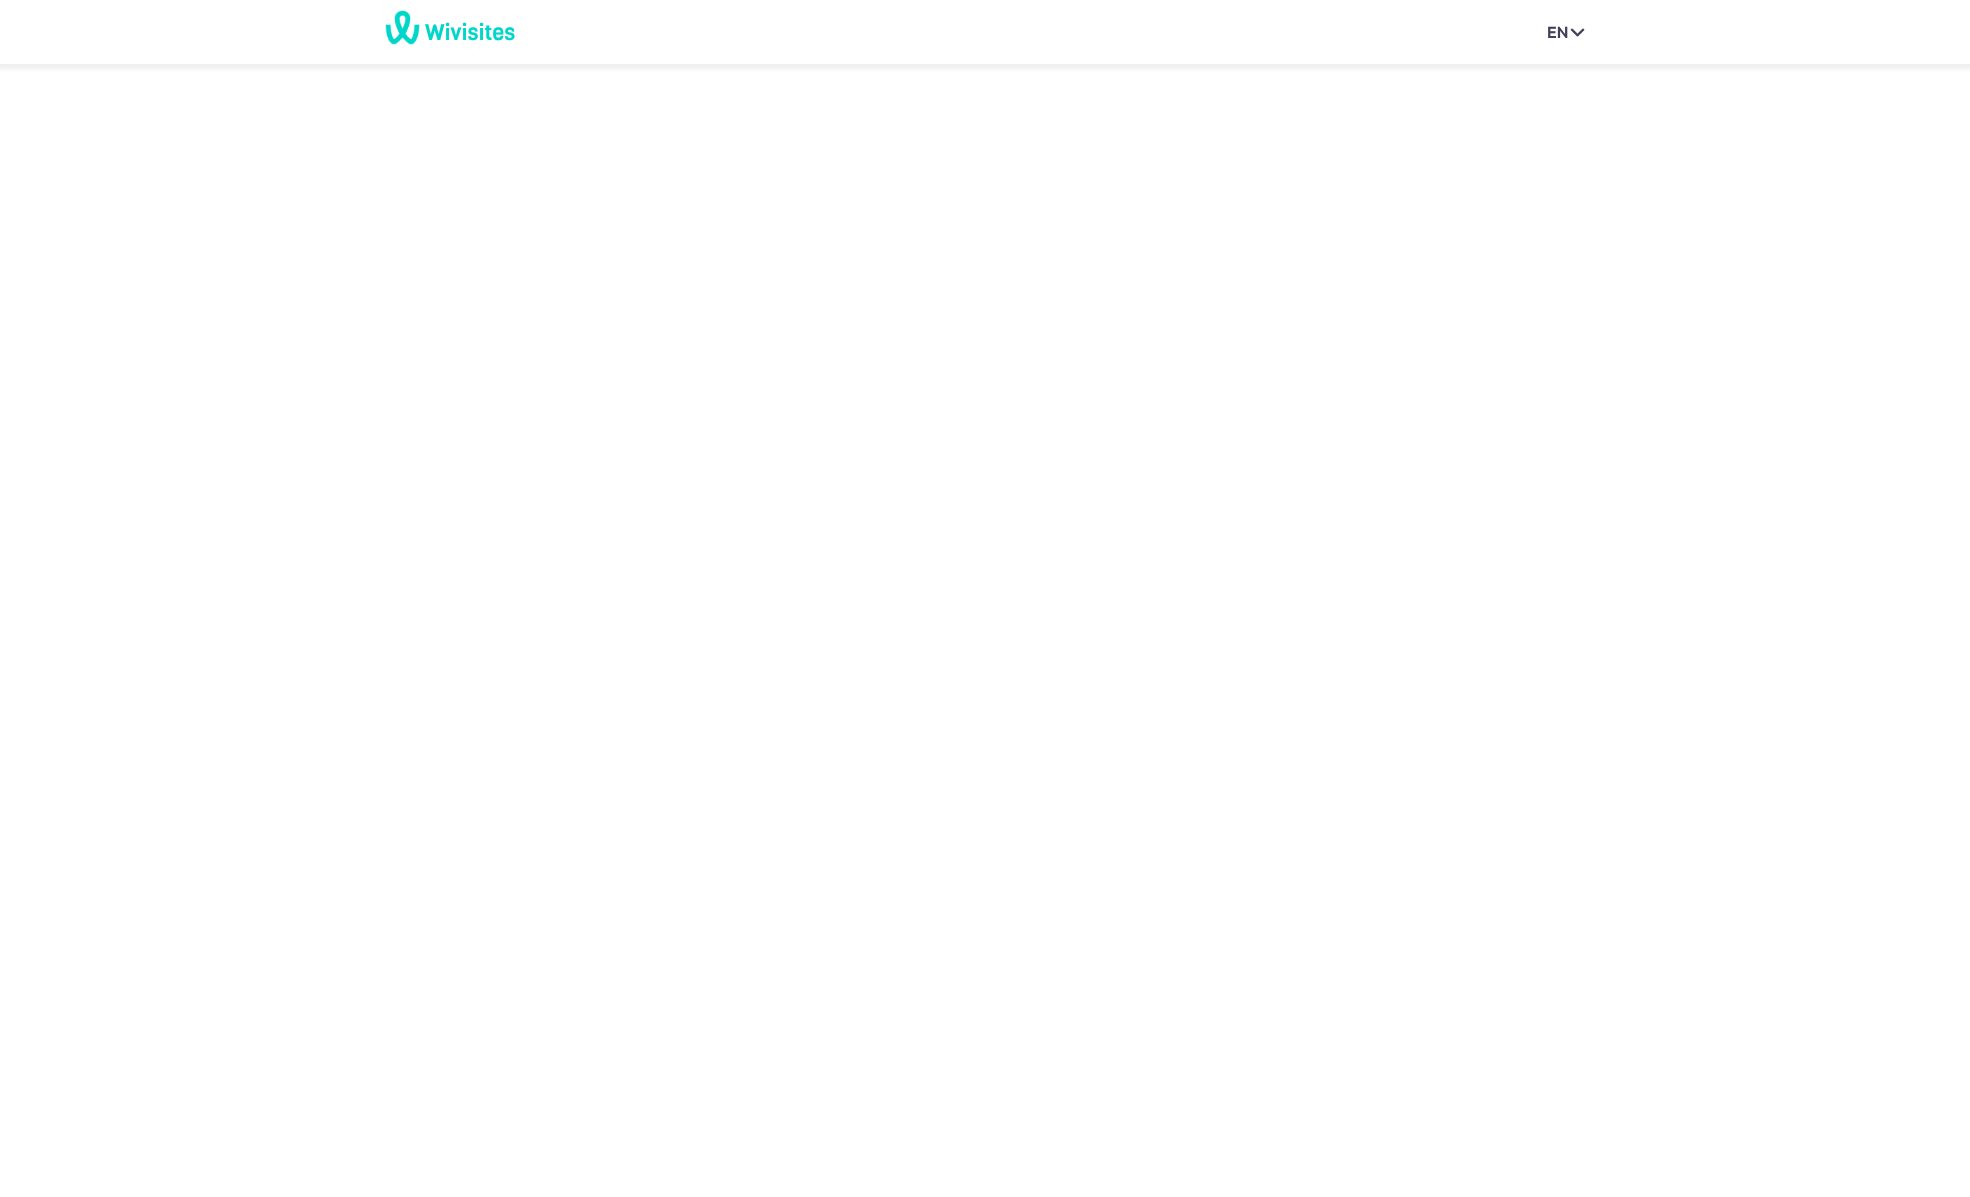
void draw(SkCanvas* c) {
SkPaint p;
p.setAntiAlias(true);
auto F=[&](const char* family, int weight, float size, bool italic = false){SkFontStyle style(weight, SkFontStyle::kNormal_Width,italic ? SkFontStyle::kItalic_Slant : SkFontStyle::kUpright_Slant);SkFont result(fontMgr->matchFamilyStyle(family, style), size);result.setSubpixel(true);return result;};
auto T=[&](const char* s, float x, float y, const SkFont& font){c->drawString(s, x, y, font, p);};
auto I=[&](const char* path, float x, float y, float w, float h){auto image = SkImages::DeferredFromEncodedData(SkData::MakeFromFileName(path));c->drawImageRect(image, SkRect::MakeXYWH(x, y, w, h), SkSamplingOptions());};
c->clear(0xffffffff);
c->save();
c->clipRect(SkRect::MakeXYWH(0,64,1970,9));
p.setColor(0x4dc8c8c8);
p.setMaskFilter(SkMaskFilter::MakeBlur(kNormal_SkBlurStyle, 2.5));
c->drawRect(SkRect::MakeXYWH(-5,-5,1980,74),p);
p.setMaskFilter(nullptr);
c->restore();
I("1.png",385,10,35,35);
auto f1 = F("Viga",400,22);
p.setColor(0xff00d7ca);
T("Wivisites",425,40,f1);
auto f2 = F("Outfit",600,16);
p.setColor(0xff424159);
T("EN",1547,38,f2);
I("2.png",1570,28,15,9);
}
